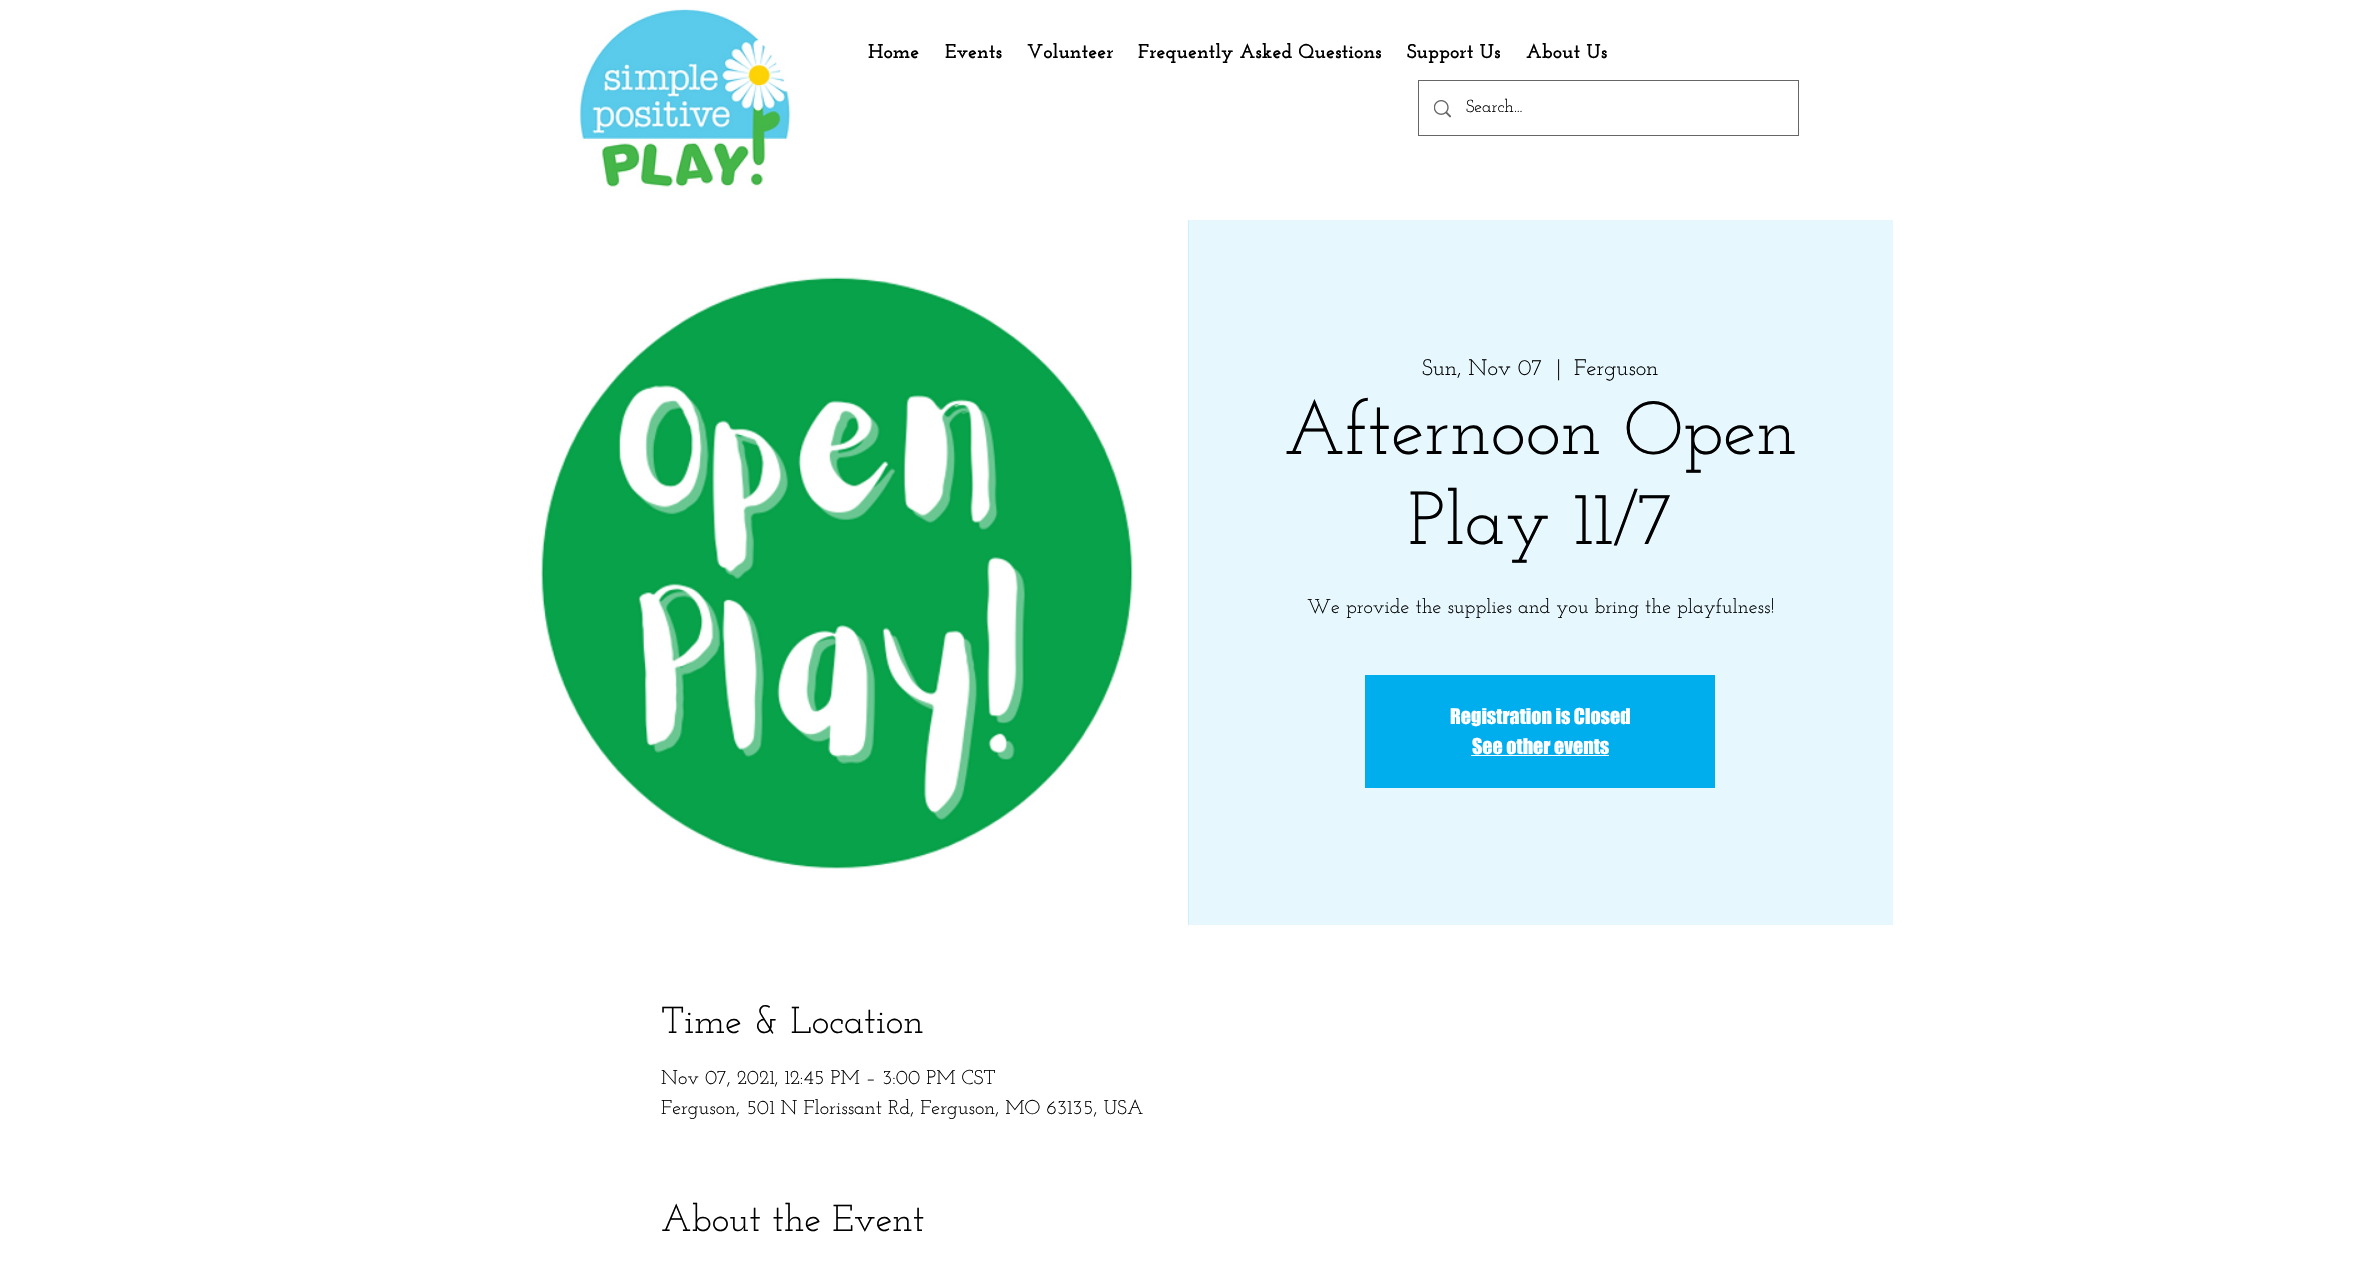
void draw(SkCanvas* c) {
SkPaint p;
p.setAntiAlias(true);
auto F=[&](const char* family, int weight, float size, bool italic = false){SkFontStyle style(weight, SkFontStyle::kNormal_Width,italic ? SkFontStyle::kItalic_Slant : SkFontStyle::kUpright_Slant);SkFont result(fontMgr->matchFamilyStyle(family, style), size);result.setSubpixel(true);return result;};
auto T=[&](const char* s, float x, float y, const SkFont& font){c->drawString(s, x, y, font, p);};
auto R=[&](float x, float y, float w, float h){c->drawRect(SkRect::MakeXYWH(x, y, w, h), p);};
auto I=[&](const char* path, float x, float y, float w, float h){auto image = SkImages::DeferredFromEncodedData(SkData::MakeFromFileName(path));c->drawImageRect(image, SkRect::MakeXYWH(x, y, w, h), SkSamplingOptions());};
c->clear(0xffffffff);
I("1.png",579,8,212,179);
auto f1 = F("Josefin Slab",700,20);
p.setColor(0xff000000);
T("Home",868,58,f1);
T("Events",945,58,f1);
T("Volunteer",1027,58,f1);
T("Frequently Asked Questions",1138,58,f1);
T("Support Us",1407,58,f1);
T("About Us",1526,58,f1);
p.setStroke(true);
p.setStrokeWidth(1);
p.setColor(0xff666666);
c->drawRect(SkRect::MakeXYWH(1418.5,80.5,380,55),p);
I("2.png",1434,100,17,18);
auto f2 = F("Josefin Slab",400,17.5);
p.setStroke(false);
p.setColor(0xff000000);
T("Search...",1466,112,f2);
p.setColor(0xff8cdcf8);
R(1188,220,1,705);
I("3.png",484,220,705,705);
p.setColor(0xffe6f8fe);
R(1189,220,704,705);
auto f3 = F("Josefin Slab",400,22.5);
p.setColor(0xff000000);
T("Sun, Nov 07",1422,375,f3);
T("|",1556,375,f3);
T("Ferguson",1574,375,f3);
auto f4 = F("Josefin Slab",400,75);
T("Afternoon Open",1284,454,f4);
T("Play 11/7",1408,544,f4);
auto f5 = F("Josefin Slab",400,20);
T("We provide the supplies and you bring the playfulness!",1307,613,f5);
p.setColor(0xff00aded);
R(1365,675,350,113);
auto f6 = F("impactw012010",400,20);
p.setColor(0xffffffff);
T("Registration is Closed",1450,724,f6);
T("See other events",1472,754,f6);
R(1471,755,138,1);
auto f7 = F("Josefin Slab",400,37.5);
p.setColor(0xff000000);
T("Time & Location",661,1033,f7);
T("Nov 07, 2021, 12:45 PM – 3:00 PM CST",661,1084,f5);
T("Ferguson, 501 N Florissant Rd, Ferguson, MO 63135, USA",661,1114,f5);
T("About the Event",661,1231,f7);
}
